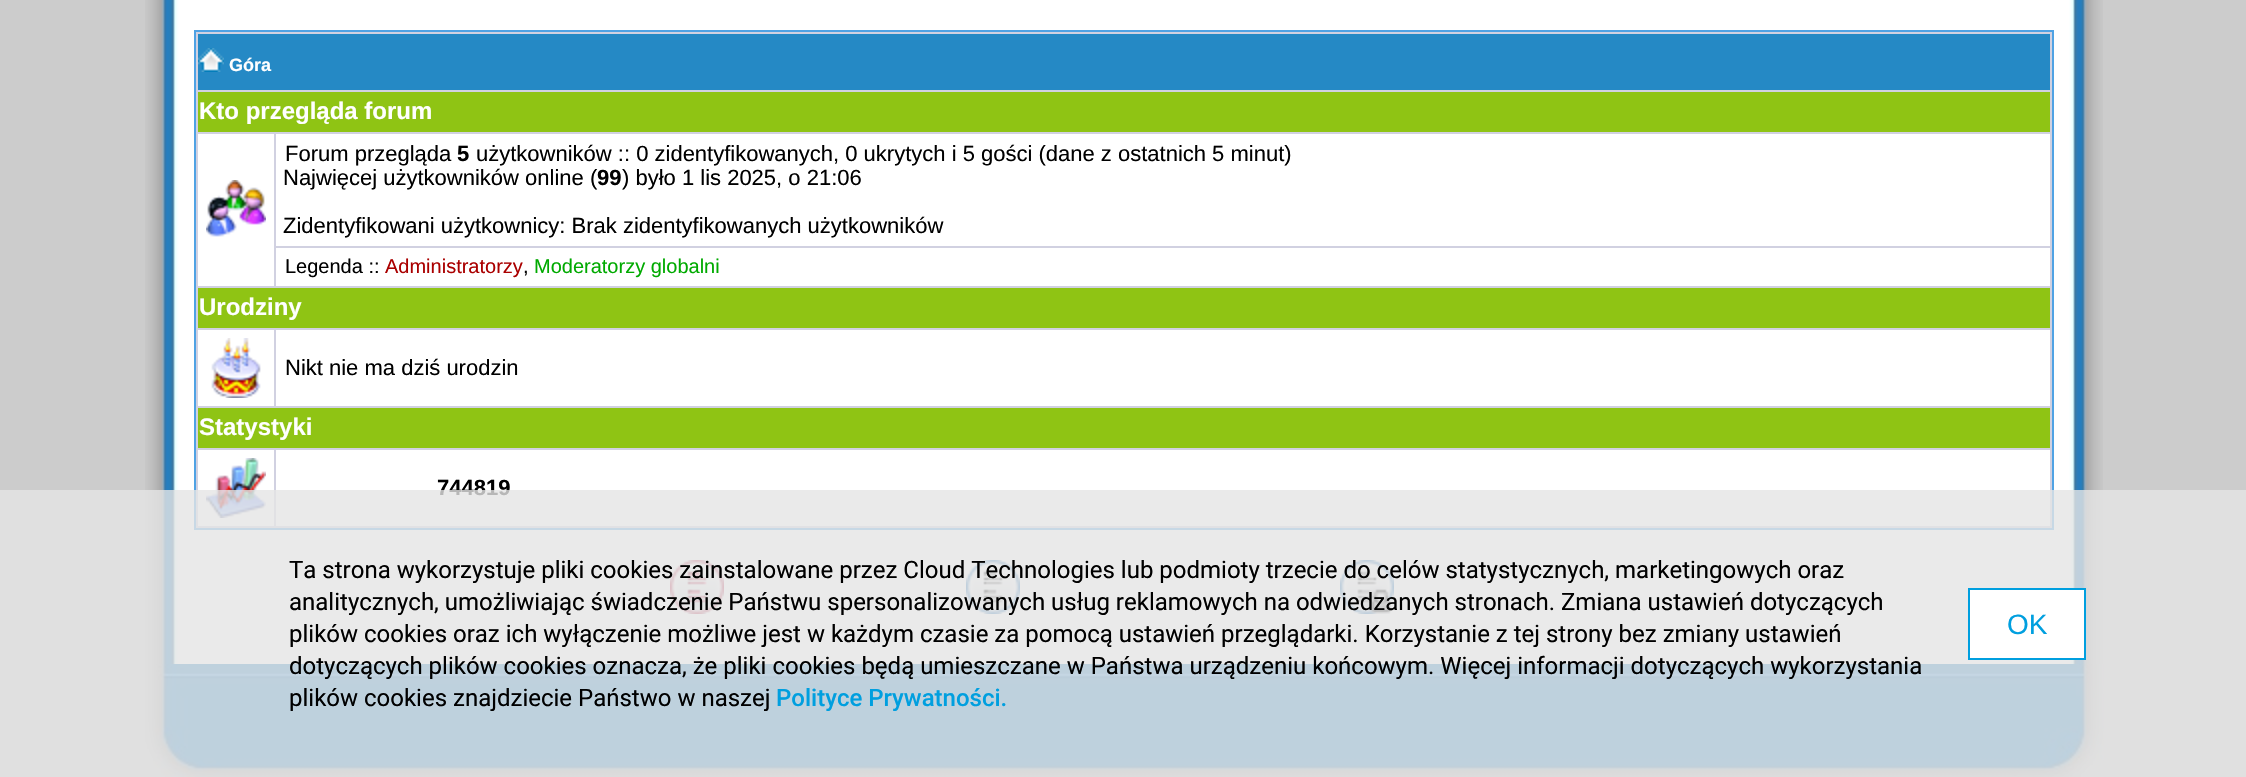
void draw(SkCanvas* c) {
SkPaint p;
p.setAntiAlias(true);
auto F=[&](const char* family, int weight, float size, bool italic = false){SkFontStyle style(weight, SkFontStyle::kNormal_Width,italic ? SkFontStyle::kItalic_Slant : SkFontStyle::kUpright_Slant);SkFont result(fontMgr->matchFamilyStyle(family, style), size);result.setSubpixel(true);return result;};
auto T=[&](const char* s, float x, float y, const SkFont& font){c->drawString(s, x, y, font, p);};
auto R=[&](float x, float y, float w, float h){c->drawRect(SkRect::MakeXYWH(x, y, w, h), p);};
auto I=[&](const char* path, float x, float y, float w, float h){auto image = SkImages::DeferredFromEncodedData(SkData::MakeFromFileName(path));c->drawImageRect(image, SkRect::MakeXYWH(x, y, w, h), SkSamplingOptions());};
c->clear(0xffcccccc);
I("1.png",145,0,1958,664);
p.setColor(0xffd1d1e1);
c->drawRect(SkRect::MakeXYWH(195,31,1858,498),p);
p.setStroke(true);
p.setStrokeWidth(2);
p.setColor(0xff4fa2e4);
c->drawRect(SkRect::MakeXYWH(195,31,1858,498),p);
p.setStroke(false);
p.setColor(0xff2589c5);
R(198,34,1852,56);
I("2.png",198,48,26,24);
auto f1 = F("Liberation Sans",700,18);
p.setColor(0xffffffff);
T("Góra",229,71,f1);
p.setColor(0xff8fc414);
R(198,92,1852,40);
auto f2 = F("Liberation Sans",700,24);
p.setColor(0xffffffff);
T("Kto przegląda forum",199,119,f2);
R(198,134,76,152);
I("3.png",206,180,60,57);
R(276,134,1774,112);
auto f3 = F("Liberation Sans",400,22);
p.setColor(0xff000000);
T("Forum przegląda",285,161,f3);
auto f4 = F("Liberation Sans",700,22);
T("5",457,161,f4);
T("użytkowników :: 0 zidentyfikowanych, 0 ukrytych i 5 gości (dane z ostatnich 5 minut)",476,161,f3);
T("Najwięcej użytkowników online (",283,185,f3);
T("99",597,185,f4);
T(") było 1 lis 2025, o 21:06",622,185,f3);
T("Zidentyfikowani użytkownicy: Brak zidentyfikowanych użytkowników",283,233,f3);
p.setColor(0xffffffff);
R(276,248,1774,38);
auto f5 = F("Liberation Sans",400,20);
p.setColor(0xff000000);
T("Legenda ::",285,273,f5);
p.setColor(0xffaa0000);
T("Administratorzy",385,273,f5);
p.setColor(0xff000000);
T(",",523,273,f5);
p.setColor(0xff00aa00);
T("Moderatorzy globalni",534,273,f5);
p.setColor(0xff8fc414);
R(198,288,1852,40);
p.setColor(0xffffffff);
T("Urodziny",199,315,f2);
R(198,330,76,76);
I("4.png",211,338,50,60);
R(276,330,1774,76);
p.setColor(0xff000000);
T("Nikt nie ma dziś urodzin",285,375,f3);
p.setColor(0xff8fc414);
R(198,408,1852,40);
p.setColor(0xffffffff);
T("Statystyki",199,435,f2);
R(198,450,76,76);
I("5.png",206,458,60,60);
R(276,450,1774,76);
p.setColor(0xff000000);
T("744819",437,495,f4);
I("6.png",670,560,54,54);
I("7.png",966,560,54,54);
I("8.png",1340,560,54,54);
I("9.png",145,664,1959,113);
p.setColor(0xcce5e5e5);
R(0,490,2246,287);
auto f6 = F("Roboto",400,24);
p.setColor(0xff000000);
T("Ta strona wykorzystuje pliki cookies zainstalowane przez Cloud Technologies lub podmioty trzecie do celów statystycznych, marketingowych oraz",289,578,f6);
T("analitycznych, umożliwiając świadczenie Państwu spersonalizowanych usług reklamowych na odwiedzanych stronach. Zmiana ustawień dotyczących",289,610,f6);
T("plików cookies oraz ich wyłączenie możliwe jest w każdym czasie za pomocą ustawień przeglądarki. Korzystanie z tej strony bez zmiany ustawień",289,642,f6);
T("dotyczących plików cookies oznacza, że pliki cookies będą umieszczane w Państwa urządzeniu końcowym. Więcej informacji dotyczących wykorzystania",289,674,f6);
T("plików cookies znajdziecie Państwo w naszej",289,706,f6);
auto f7 = F("Roboto",500,24);
p.setColor(0xff009fdf);
T("Polityce Prywatności.",776,706,f7);
p.setColor(0xffffffff);
c->drawRect(SkRect::MakeXYWH(1969,589,116,70),p);
p.setStroke(true);
p.setColor(0xff009fdf);
c->drawRect(SkRect::MakeXYWH(1969,589,116,70),p);
auto f8 = F("Liberation Sans",400,28);
p.setStroke(false);
T("OK",2007,634,f8);
}
